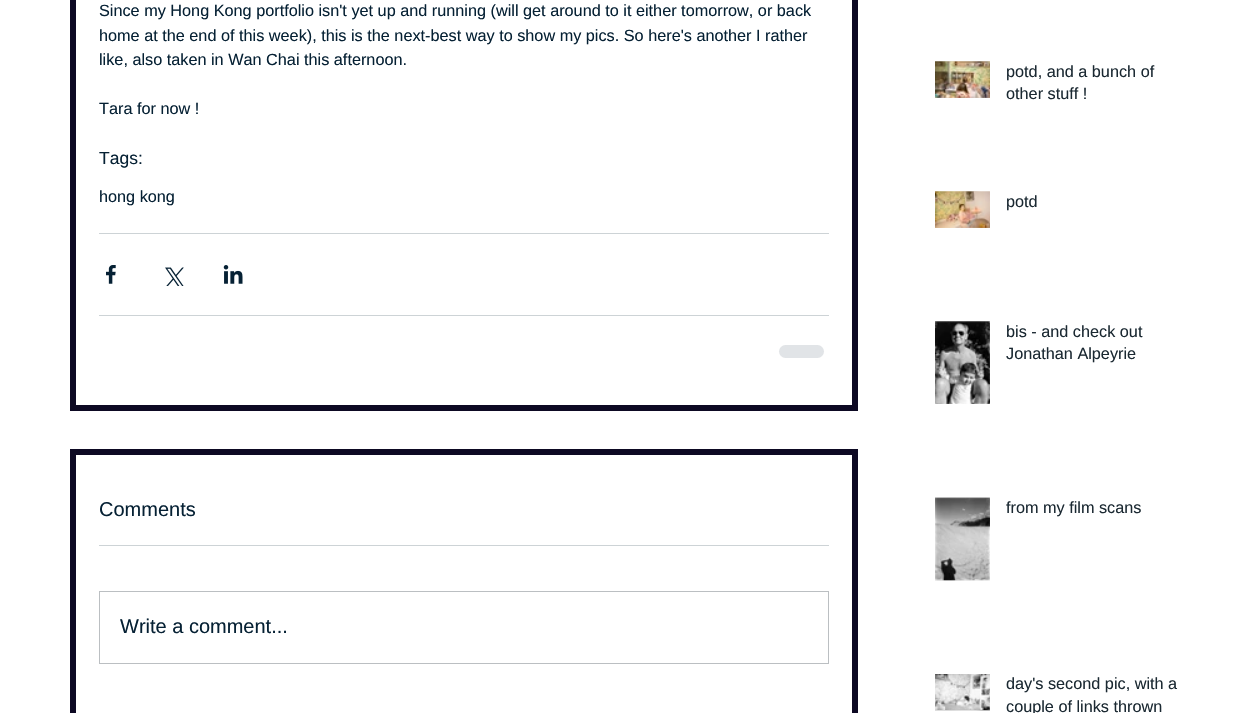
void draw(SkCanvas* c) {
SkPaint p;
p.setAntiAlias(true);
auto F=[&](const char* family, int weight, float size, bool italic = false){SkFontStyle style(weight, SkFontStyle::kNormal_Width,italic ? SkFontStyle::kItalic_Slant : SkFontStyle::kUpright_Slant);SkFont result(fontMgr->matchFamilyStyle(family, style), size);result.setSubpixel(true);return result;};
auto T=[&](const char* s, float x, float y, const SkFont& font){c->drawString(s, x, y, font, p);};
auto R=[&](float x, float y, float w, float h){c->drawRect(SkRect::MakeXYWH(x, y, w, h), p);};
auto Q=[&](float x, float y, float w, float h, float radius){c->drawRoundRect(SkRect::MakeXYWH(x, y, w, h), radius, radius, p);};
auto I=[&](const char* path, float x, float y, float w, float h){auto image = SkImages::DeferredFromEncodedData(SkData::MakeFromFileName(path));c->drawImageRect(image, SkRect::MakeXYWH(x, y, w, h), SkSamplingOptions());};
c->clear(0xffffffff);
p.setStroke(true);
p.setStrokeWidth(6);
p.setColor(0xff0d0923);
c->drawRect(SkRect::MakeXYWH(73,-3,782,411),p);
auto f1 = F("Liberation Sans",400,16.25);
p.setStroke(false);
p.setColor(0xff062134);
T("Since my Hong Kong portfolio isn't yet up and running (will get around to it either tomorrow, or back",99,16,f1);
T("home at the end of this week), this is the next-best way to show my pics. So here's another I rather",99,41,f1);
T("like, also taken in Wan Chai this afternoon.",99,65,f1);
T("Tara for now !",99,114,f1);
auto f2 = F("Liberation Sans",400,17.5);
T("Tags:",99,164,f2);
T("hong kong",99,202,f1);
p.setColor(0xffcdd3d6);
R(99,233,730,1);
I("1.png",106,265,10,19);
I("2.png",165,267,19,19);
I("3.png",223,265,20,19);
R(99,315,730,1);
p.setColor(0xffe1e4e7);
Q(779,345,45,13,6.5);
p.setStroke(true);
p.setColor(0xff0d0923);
c->drawRect(SkRect::MakeXYWH(73,452,782,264),p);
auto f3 = F("Liberation Sans",400,20);
p.setStroke(false);
p.setColor(0xff062134);
T("Comments",99,516,f3);
p.setColor(0xffcdd3d6);
R(99,545,730,1);
p.setStroke(true);
p.setStrokeWidth(1);
p.setColor(0xffbbbfc2);
c->drawRect(SkRect::MakeXYWH(99.5,591.5,729,72),p);
p.setStroke(false);
p.setColor(0xff062134);
T("Write a comment...",120,633,f3);
I("4.png",935,61,55,37);
I("5.png",935,61,55,37);
p.setColor(0xff1b2932);
T("potd, and a bunch of",1006,77,f1);
T("other stuff !",1006,99,f1);
I("6.png",935,191,55,37);
I("7.png",935,191,55,37);
T("potd",1006,207,f1);
I("8.png",935,321,55,1);
I("9.png",935,321,55,83);
T("bis - and check out",1006,337,f1);
T("Jonathan Alpeyrie",1006,359,f1);
I("10.png",935,497,55,84);
I("11.png",935,497,55,84);
T("from my film scans",1006,513,f1);
I("12.png",935,674,55,36);
I("13.png",935,710,55,1);
T("day's second pic, with a",1006,689,f1);
T("couple of links thrown",1006,712,f1);
}
